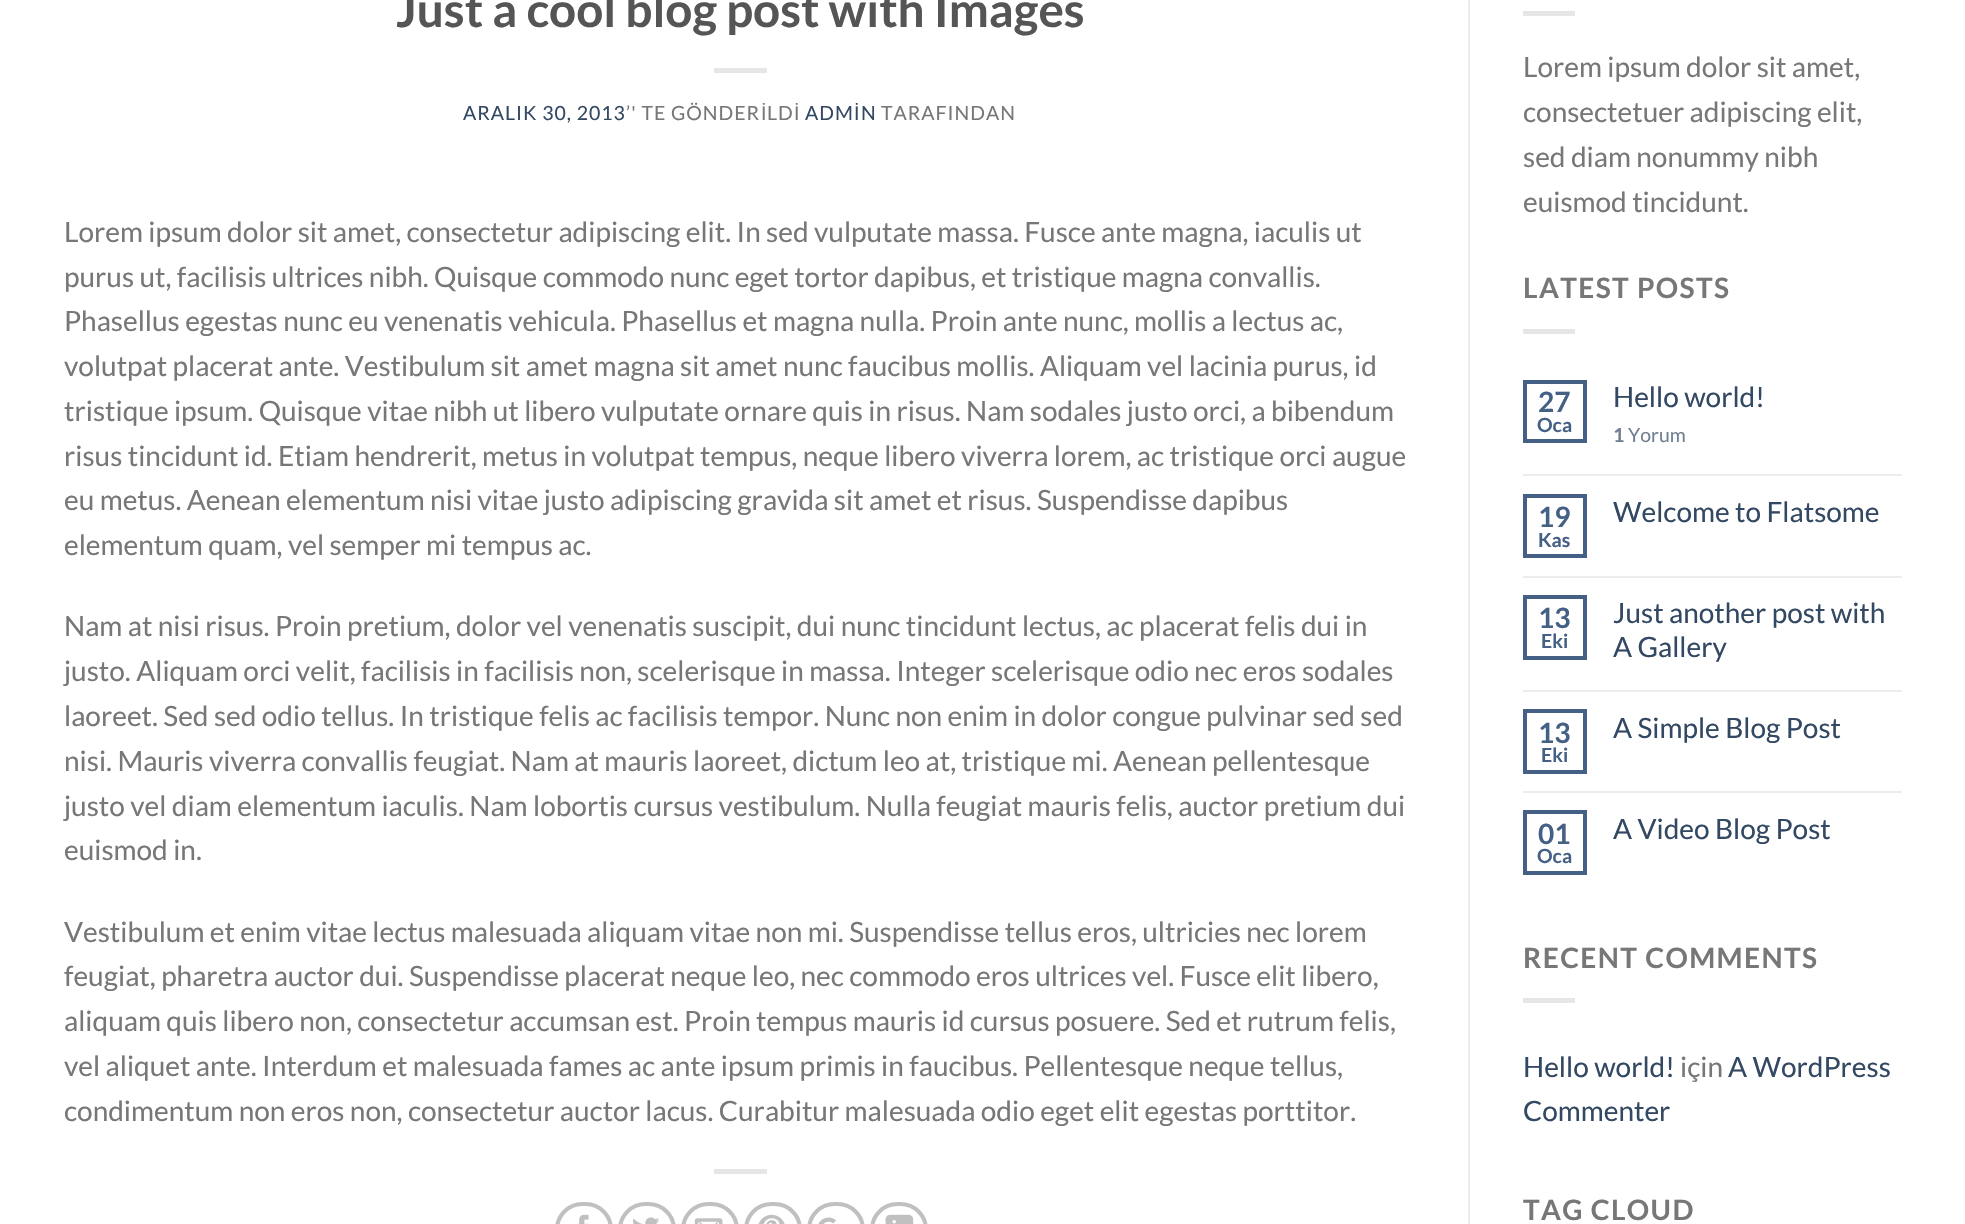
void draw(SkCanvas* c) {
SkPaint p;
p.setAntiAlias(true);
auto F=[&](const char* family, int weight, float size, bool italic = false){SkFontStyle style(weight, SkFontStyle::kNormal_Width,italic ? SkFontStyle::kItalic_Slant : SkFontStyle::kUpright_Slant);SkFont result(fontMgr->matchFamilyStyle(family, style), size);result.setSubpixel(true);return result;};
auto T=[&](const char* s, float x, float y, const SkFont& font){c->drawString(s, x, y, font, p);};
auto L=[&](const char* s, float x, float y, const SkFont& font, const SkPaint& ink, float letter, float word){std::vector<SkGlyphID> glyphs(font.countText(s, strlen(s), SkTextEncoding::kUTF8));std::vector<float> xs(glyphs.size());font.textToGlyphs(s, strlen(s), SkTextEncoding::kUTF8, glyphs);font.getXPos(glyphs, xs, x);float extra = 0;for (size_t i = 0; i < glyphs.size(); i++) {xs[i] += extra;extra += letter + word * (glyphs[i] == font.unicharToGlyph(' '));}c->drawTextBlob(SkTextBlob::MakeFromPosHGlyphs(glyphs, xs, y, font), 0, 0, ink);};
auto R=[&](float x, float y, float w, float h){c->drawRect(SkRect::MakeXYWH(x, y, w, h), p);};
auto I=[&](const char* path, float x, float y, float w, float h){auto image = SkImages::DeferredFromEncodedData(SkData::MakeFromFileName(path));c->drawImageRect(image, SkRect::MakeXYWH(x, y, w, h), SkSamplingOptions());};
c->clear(0xffffffff);
auto f1 = F("Lato",700,47.6);
p.setColor(0xff555555);
T("Just a cool blog post with Images",396,27,f1);
p.setColor(0xffe6e6e6);
R(714,68,53,5);
auto f2 = F("Lato",400,19.5);
p.setColor(0xff334862);
L("ARALIK 30, 2013",463,120,f2,p,1,0);
p.setColor(0xff777777);
L("’' TE GÖNDER",626,120,f2,p,1,0);
auto f3 = F("Liberation Sans",400,19.5);
L("İ",761,120,f3,p,1,0);
L("LD",767,120,f2,p,1,0);
L("İ",794,120,f3,p,1,0);
p.setColor(0xff334862);
L("ADM",805,120,f2,p,1,0);
L("İ",854,120,f3,p,1,0);
L("N",861,120,f2,p,1,0);
p.setColor(0xff777777);
L("TARAFINDAN",881,120,f2,p,1,0);
auto f4 = F("Lato",400,28);
T("Lorem ipsum dolor sit amet, consectetur adipiscing elit. In sed vulputate massa. Fusce ante magna, iaculis ut",64,242,f4);
T("purus ut, facilisis ultrices nibh. Quisque commodo nunc eget tortor dapibus, et tristique magna convallis.",64,287,f4);
T("Phasellus egestas nunc eu venenatis vehicula. Phasellus et magna nulla. Proin ante nunc, mollis a lectus ac,",64,331,f4);
T("volutpat placerat ante. Vestibulum sit amet magna sit amet nunc faucibus mollis. Aliquam vel lacinia purus, id",64,376,f4);
T("tristique ipsum. Quisque vitae nibh ut libero vulputate ornare quis in risus. Nam sodales justo orci, a bibendum",64,421,f4);
T("risus tincidunt id. Etiam hendrerit, metus in volutpat tempus, neque libero viverra lorem, ac tristique orci augue",64,466,f4);
T("eu metus. Aenean elementum nisi vitae justo adipiscing gravida sit amet et risus. Suspendisse dapibus",64,510,f4);
T("elementum quam, vel semper mi tempus ac.",64,555,f4);
T("Nam at nisi risus. Proin pretium, dolor vel venenatis suscipit, dui nunc tincidunt lectus, ac placerat felis dui in",64,636,f4);
T("justo. Aliquam orci velit, facilisis in facilisis non, scelerisque in massa. Integer scelerisque odio nec eros sodales",64,681,f4);
T("laoreet. Sed sed odio tellus. In tristique felis ac facilisis tempor. Nunc non enim in dolor congue pulvinar sed sed",64,726,f4);
T("nisi. Mauris viverra convallis feugiat. Nam at mauris laoreet, dictum leo at, tristique mi. Aenean pellentesque",64,771,f4);
T("justo vel diam elementum iaculis. Nam lobortis cursus vestibulum. Nulla feugiat mauris felis, auctor pretium dui",64,816,f4);
T("euismod in.",64,860,f4);
T("Vestibulum et enim vitae lectus malesuada aliquam vitae non mi. Suspendisse tellus eros, ultricies nec lorem",64,942,f4);
T("feugiat, pharetra auctor dui. Suspendisse placerat neque leo, nec commodo eros ultrices vel. Fusce elit libero,",64,986,f4);
T("aliquam quis libero non, consectetur accumsan est. Proin tempus mauris id cursus posuere. Sed et rutrum felis,",64,1031,f4);
T("vel aliquet ante. Interdum et malesuada fames ac ante ipsum primis in faucibus. Pellentesque neque tellus,",64,1076,f4);
T("condimentum non eros non, consectetur auctor lacus. Curabitur malesuada odio eget elit egestas porttitor.",64,1121,f4);
p.setColor(0xffe6e6e6);
R(714,1169,53,5);
p.setStroke(true);
p.setStrokeWidth(4);
p.setColor(0xffc0c0c0);
c->drawRoundRect(SkRect::MakeXYWH(557,1204,54,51),27,27,p);
I("1.png",576,1214,13,10);
c->drawRoundRect(SkRect::MakeXYWH(620,1204,54,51),27,27,p);
I("2.png",633,1217,27,7);
c->drawRoundRect(SkRect::MakeXYWH(683,1204,54,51),27,27,p);
I("3.png",694,1218,29,6);
c->drawRoundRect(SkRect::MakeXYWH(746,1204,54,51),27,27,p);
I("4.png",758,1214,27,10);
c->drawRoundRect(SkRect::MakeXYWH(809,1204,54,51),27,27,p);
I("5.png",818,1217,18,7);
c->drawRoundRect(SkRect::MakeXYWH(872,1204,54,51),27,27,p);
I("6.png",885,1214,29,10);
p.setStroke(false);
p.setColor(0xffececec);
R(1468,0,2,1224);
p.setColor(0xffe6e6e6);
R(1523,11,52,5);
p.setColor(0xff777777);
T("Lorem ipsum dolor sit amet,",1523,77,f4);
T("consectetuer adipiscing elit,",1523,122,f4);
T("sed diam nonummy nibh",1523,167,f4);
T("euismod tincidunt.",1523,212,f4);
auto f5 = F("Lato",700,28);
L("LATEST POSTS",1523,298,f5,p,1.4,0);
p.setColor(0xffe6e6e6);
R(1523,329,52,5);
p.setStroke(true);
p.setColor(0xff446084);
c->drawRect(SkRect::MakeXYWH(1525,382,60,59),p);
p.setStroke(false);
T("27",1538,412,f5);
auto f6 = F("Lato",700,19.5);
T("Oca",1537,432,f6);
p.setColor(0xff334862);
T("Hello world!",1613,407,f4);
p.setColor(0xff707f91);
T("1",1613,442,f6);
T("Yorum",1628,442,f2);
p.setColor(0xffececec);
R(1523,474,379,2);
p.setStroke(true);
p.setColor(0xff446084);
c->drawRect(SkRect::MakeXYWH(1525,496,60,60),p);
p.setStroke(false);
T("19",1538,527,f5);
T("Kas",1538,547,f6);
p.setColor(0xff334862);
T("Welcome to Flatsome",1613,522,f4);
p.setColor(0xffececec);
R(1523,576,379,2);
p.setStroke(true);
p.setColor(0xff446084);
c->drawRect(SkRect::MakeXYWH(1525,597,60,61),p);
p.setStroke(false);
T("13",1538,628,f5);
T("Eki",1541,648,f6);
p.setColor(0xff334862);
T("Just another post with",1613,623,f4);
T("A Gallery",1613,657,f4);
p.setColor(0xffececec);
R(1523,690,379,2);
p.setStroke(true);
p.setColor(0xff446084);
c->drawRect(SkRect::MakeXYWH(1525,711,60,61),p);
p.setStroke(false);
T("13",1538,743,f5);
T("Eki",1541,762,f6);
p.setColor(0xff334862);
T("A Simple Blog Post",1613,738,f4);
p.setColor(0xffececec);
R(1523,791,379,2);
p.setStroke(true);
p.setColor(0xff446084);
c->drawRect(SkRect::MakeXYWH(1525,812,60,61),p);
p.setStroke(false);
T("01",1538,844,f5);
T("Oca",1537,863,f6);
p.setColor(0xff334862);
T("A Video Blog Post",1613,839,f4);
p.setColor(0xff777777);
L("RECENT COMMENTS",1523,968,f5,p,1.4,0);
p.setColor(0xffe6e6e6);
R(1523,998,52,5);
p.setColor(0xff334862);
T("Hello world!",1523,1077,f4);
p.setColor(0xff777777);
T("için",1680,1077,f4);
p.setColor(0xff334862);
T("A WordPress",1728,1077,f4);
T("Commenter",1523,1121,f4);
p.setColor(0xff777777);
L("TAG CLOUD",1523,1220,f5,p,1.4,0);
}
